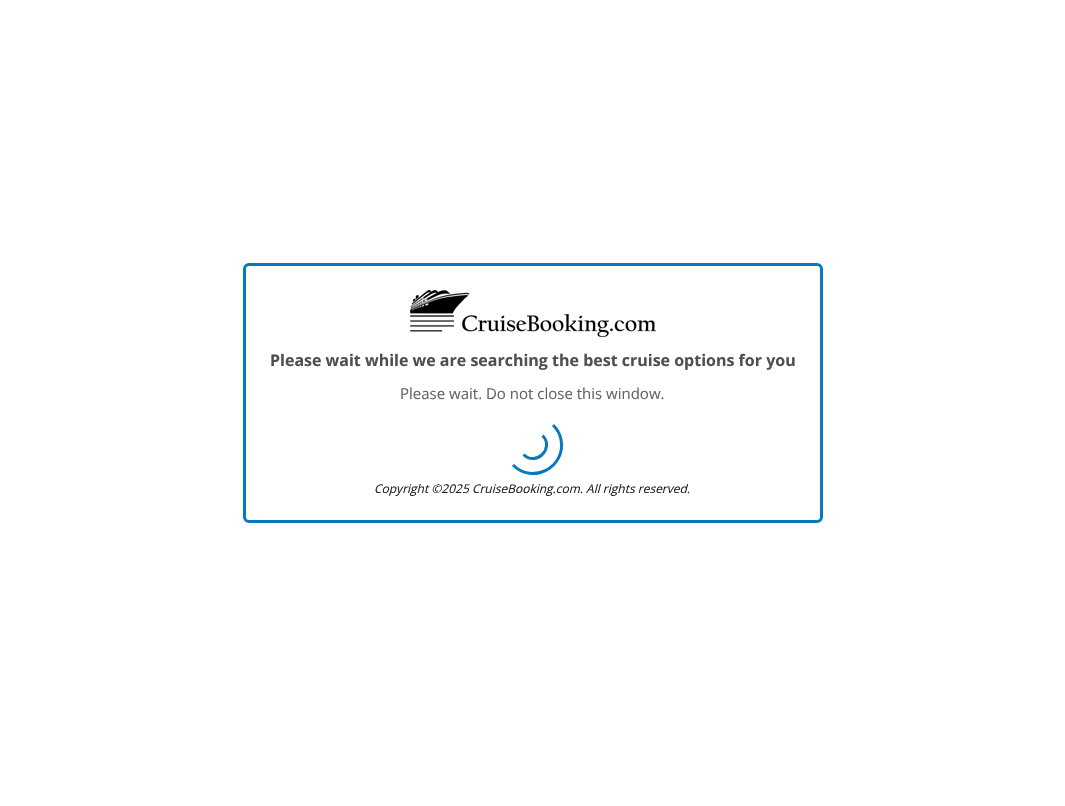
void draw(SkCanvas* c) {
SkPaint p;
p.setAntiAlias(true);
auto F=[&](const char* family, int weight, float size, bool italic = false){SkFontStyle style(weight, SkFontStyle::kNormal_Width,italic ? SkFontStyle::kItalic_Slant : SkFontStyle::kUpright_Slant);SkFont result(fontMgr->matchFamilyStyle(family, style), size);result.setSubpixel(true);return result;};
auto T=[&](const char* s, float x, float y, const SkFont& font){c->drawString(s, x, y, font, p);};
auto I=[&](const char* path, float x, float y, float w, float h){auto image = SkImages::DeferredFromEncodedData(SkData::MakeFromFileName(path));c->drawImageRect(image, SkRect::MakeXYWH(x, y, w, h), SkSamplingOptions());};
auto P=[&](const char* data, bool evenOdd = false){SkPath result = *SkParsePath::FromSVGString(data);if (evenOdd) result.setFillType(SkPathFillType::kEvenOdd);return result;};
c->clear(0xffffffff);
p.setStroke(true);
p.setStrokeWidth(3);
p.setColor(0xff0978bd);
c->drawRoundRect(SkRect::MakeXYWH(244.5,264.5,577,257),4.5,4.5,p);
I("1.png",410,290,246,47);
auto f1 = F("Open Sans",700,16);
p.setStroke(false);
p.setColor(0xff4f4f4f);
T("Please wait while we are searching the best cruise options for you",270,366,f1);
auto f2 = F("Open Sans",400,15);
p.setColor(0xff636363);
T("Please wait. Do not close this window.",400,399,f2);
p.setStroke(true);
p.setColor(0xff0978bd);
c->drawPath(P("M553 425c4 4 7 9 8 14.5c5.5 27.5-28.5 45.5-48 25.5m29.5-29.5c12.5 12.5-6.5 31.5-19 19"),p);
auto f3 = F("Open Sans",400,12,true);
p.setStroke(false);
p.setColor(0xff212121);
T("Copyright ©2025 CruiseBooking.com. All rights reserved.",374,493,f3);
}
